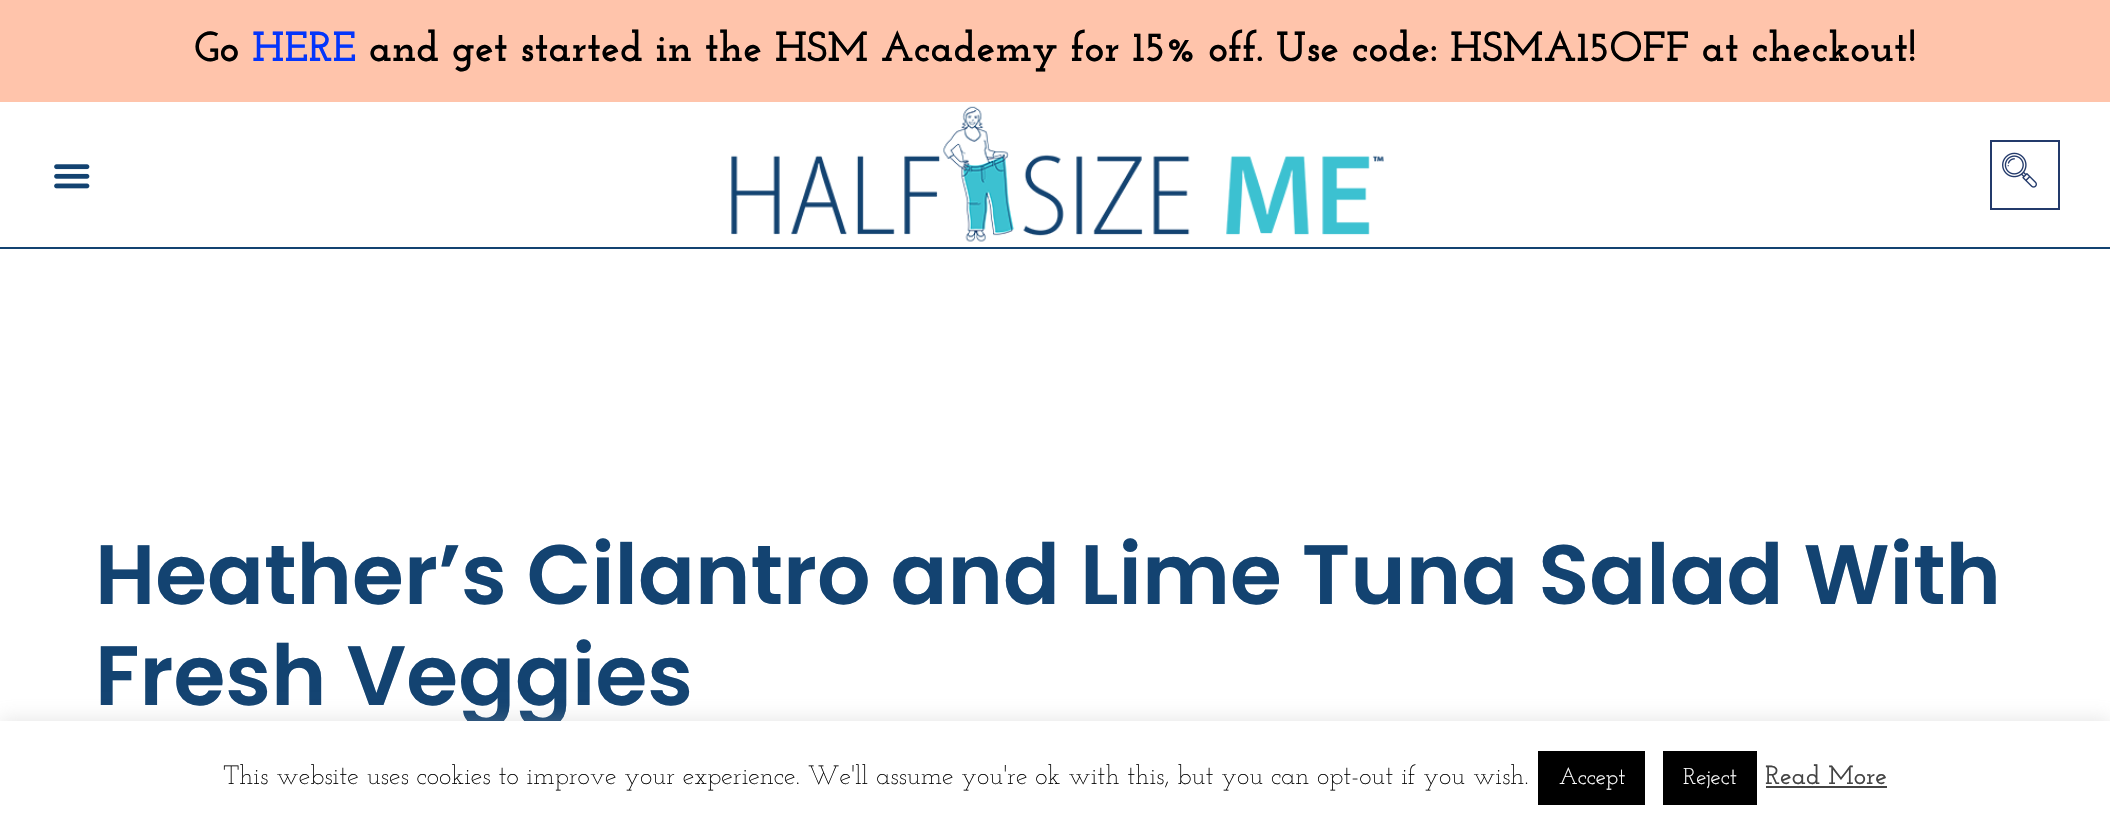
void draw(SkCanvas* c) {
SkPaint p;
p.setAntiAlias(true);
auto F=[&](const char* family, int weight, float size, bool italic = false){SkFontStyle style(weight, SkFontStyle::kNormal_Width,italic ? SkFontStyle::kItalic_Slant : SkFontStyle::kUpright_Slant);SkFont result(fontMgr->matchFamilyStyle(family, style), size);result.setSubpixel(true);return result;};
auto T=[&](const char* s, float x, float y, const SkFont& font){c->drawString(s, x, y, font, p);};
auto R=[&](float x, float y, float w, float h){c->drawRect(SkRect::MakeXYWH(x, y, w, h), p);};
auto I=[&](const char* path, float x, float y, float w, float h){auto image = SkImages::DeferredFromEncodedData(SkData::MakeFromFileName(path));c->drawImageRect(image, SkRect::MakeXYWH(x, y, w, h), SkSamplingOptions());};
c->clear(0xffffffff);
p.setColor(0xffffc4ab);
R(0,0,2110,102);
auto f1 = F("Josefin Slab",700,42);
p.setColor(0xff000000);
T("Go",194,61,f1);
p.setColor(0xff0435fb);
T("HERE",252,61,f1);
p.setColor(0xff000000);
T("and get started in the HSM Academy for 15% off. Use code: HSMA15OFF at checkout!",369,61,f1);
p.setColor(0xff134371);
R(0,247,2110,2);
I("1.png",54,164,36,25);
I("2.png",731,106,653,136);
p.setStroke(true);
p.setStrokeWidth(2);
p.setColor(0xff233a6b);
c->drawRect(SkRect::MakeXYWH(1991,141,68,68),p);
I("3.png",2002,152,35,36);
auto f2 = F("Poppins",600,84);
p.setStroke(false);
p.setColor(0xff134371);
T("Heather’s Cilantro and Lime Tuna Salad With",95,604,f2);
T("Fresh Veggies",95,705,f2);
p.setColor(0x4dacabab);
p.setMaskFilter(SkMaskFilter::MakeBlur(kNormal_SkBlurStyle, 9));
c->drawRect(SkRect::MakeXYWH(0,719,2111,105),p);
p.setMaskFilter(nullptr);
p.setColor(0xffffffff);
R(0,721,2110,104);
auto f3 = F("Josefin Slab",300,26.25);
p.setColor(0xff000000);
T("This website uses cookies to improve your experience. We'll assume you're ok with this, but you can opt-out if you wish.",223,784,f3);
R(1538,751,107,54);
auto f4 = F("Josefin Slab",400,23);
p.setColor(0xffffffff);
T("Accept",1559,784,f4);
p.setColor(0xff000000);
R(1663,751,94,54);
p.setColor(0xffffffff);
T("Reject",1683,784,f4);
auto f5 = F("Josefin Slab",600,26.25);
p.setColor(0xff444444);
T("Read More",1765,784,f5);
R(1766,786,121,2);
}
